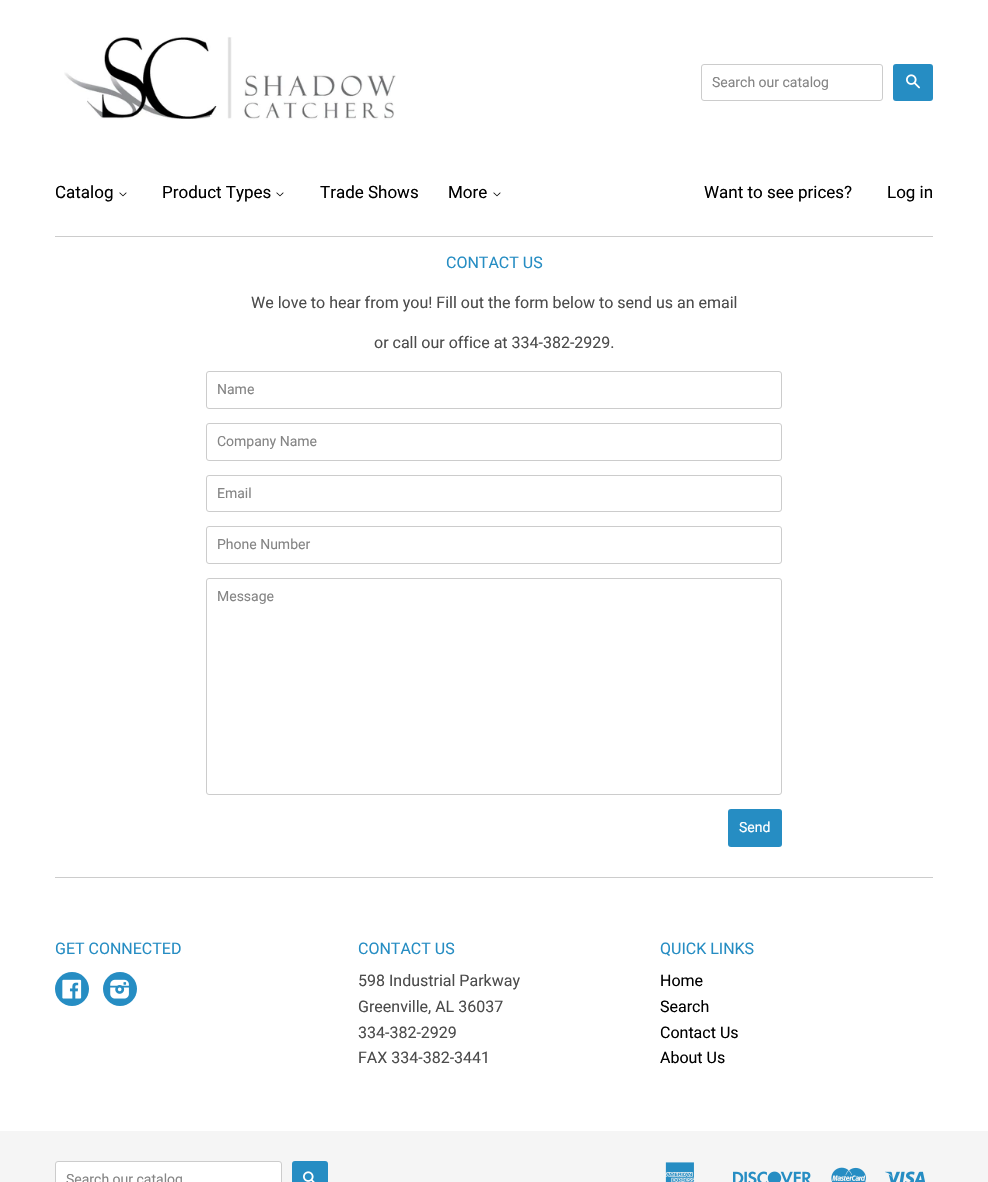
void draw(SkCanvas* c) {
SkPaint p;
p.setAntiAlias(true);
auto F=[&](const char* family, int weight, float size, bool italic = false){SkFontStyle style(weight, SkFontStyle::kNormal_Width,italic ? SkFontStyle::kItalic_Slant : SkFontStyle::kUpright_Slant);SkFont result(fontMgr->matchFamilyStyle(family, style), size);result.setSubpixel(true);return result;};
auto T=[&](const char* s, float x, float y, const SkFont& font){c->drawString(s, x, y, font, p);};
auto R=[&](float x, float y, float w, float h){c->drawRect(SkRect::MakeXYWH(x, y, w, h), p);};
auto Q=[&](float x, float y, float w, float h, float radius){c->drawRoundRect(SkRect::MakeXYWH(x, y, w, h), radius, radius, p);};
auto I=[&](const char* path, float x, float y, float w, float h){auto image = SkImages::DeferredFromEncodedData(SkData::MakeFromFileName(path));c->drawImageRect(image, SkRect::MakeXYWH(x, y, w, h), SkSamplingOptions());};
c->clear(0xfff5f5f5);
p.setColor(0xffffffff);
R(0,0,988,1131);
I("1.png",64,36,332,84);
p.setStroke(true);
p.setStrokeWidth(1);
p.setColor(0xffcccccc);
c->drawRoundRect(SkRect::MakeXYWH(701.5,64.5,181,36),2.5,2.5,p);
auto f1 = F("Roboto",400,14);
p.setStroke(false);
p.setColor(0xff858585);
T("Search our catalog",712,87,f1);
p.setColor(0xff268dc3);
Q(893,64,40,37,3);
I("2.png",906,74,14,15);
auto f2 = F("Roboto",400,17);
p.setColor(0xff000000);
T("Catalog",55,198,f2);
I("3.png",119,192,8,5);
T("Product Types",162,198,f2);
I("3.png",276,192,8,5);
T("Trade Shows",320,198,f2);
T("More",448,198,f2);
I("3.png",493,192,8,5);
T("Want to see prices?",704,198,f2);
T("Log in",887,198,f2);
p.setColor(0xffcccccc);
R(55,236,878,1);
auto f3 = F("Roboto",400,16);
p.setColor(0xff268dc3);
T("CONTACT US",446,268,f3);
p.setColor(0xff4c4c4c);
T("We love to hear from you! Fill out the form below to send us an email",251,308,f3);
T("or call our office at 334-382-2929.",374,348,f3);
p.setStroke(true);
p.setColor(0xffcccccc);
c->drawRoundRect(SkRect::MakeXYWH(206.5,371.5,575,37),2.5,2.5,p);
p.setStroke(false);
p.setColor(0xff858585);
T("Name",217,394,f1);
p.setStroke(true);
p.setColor(0xffcccccc);
c->drawRoundRect(SkRect::MakeXYWH(206.5,423.5,575,37),2.5,2.5,p);
p.setStroke(false);
p.setColor(0xff858585);
T("Company Name",217,446,f1);
p.setStroke(true);
p.setColor(0xffcccccc);
c->drawRoundRect(SkRect::MakeXYWH(206.5,475.5,575,36),2.5,2.5,p);
p.setStroke(false);
p.setColor(0xff858585);
T("Email",217,498,f1);
p.setStroke(true);
p.setColor(0xffcccccc);
c->drawRoundRect(SkRect::MakeXYWH(206.5,526.5,575,37),2.5,2.5,p);
p.setStroke(false);
p.setColor(0xff858585);
T("Phone Number",217,549,f1);
p.setStroke(true);
p.setColor(0xffcccccc);
c->drawRoundRect(SkRect::MakeXYWH(206.5,578.5,575,216),2.5,2.5,p);
p.setStroke(false);
p.setColor(0xff858585);
T("Message",217,601,f1);
p.setColor(0xff268dc3);
Q(728,809,54,38,3);
p.setColor(0xffffffff);
T("Send",739,832,f1);
p.setColor(0xffcccccc);
R(55,877,878,1);
p.setColor(0xff268dc3);
T("GET CONNECTED",55,954,f3);
c->drawCircle(72,989,17,p);
I("4.png",62,979,20,20);
c->drawCircle(120,989,17,p);
I("5.png",110,979,19,20);
T("CONTACT US",358,954,f3);
p.setColor(0xff4c4c4c);
T("598 Industrial Parkway",358,986,f3);
T("Greenville, AL 36037",358,1012,f3);
T("334-382-2929",358,1038,f3);
T("FAX 334-382-3441",358,1063,f3);
p.setColor(0xff268dc3);
T("QUICK LINKS",660,954,f3);
p.setColor(0xff000000);
T("Home",660,986,f3);
T("Search",660,1012,f3);
T("Contact Us",660,1038,f3);
T("About Us",660,1063,f3);
p.setColor(0xffffffff);
c->drawRoundRect(SkRect::MakeXYWH(55.5,1161.5,226,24),2.5,2.5,p);
p.setStroke(true);
p.setColor(0xffcccccc);
c->drawRoundRect(SkRect::MakeXYWH(55.5,1161.5,226,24),2.5,2.5,p);
p.setStroke(false);
p.setColor(0xff858585);
T("Search our catalog",66,1184,f1);
p.setColor(0xff268dc3);
Q(292,1161,36,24,3);
I("6.png",303,1171,12,11);
I("7.png",665,1162,30,20);
I("8.png",733,1171,78,11);
I("9.png",831,1167,35,15);
I("10.png",885,1171,40,11);
}
